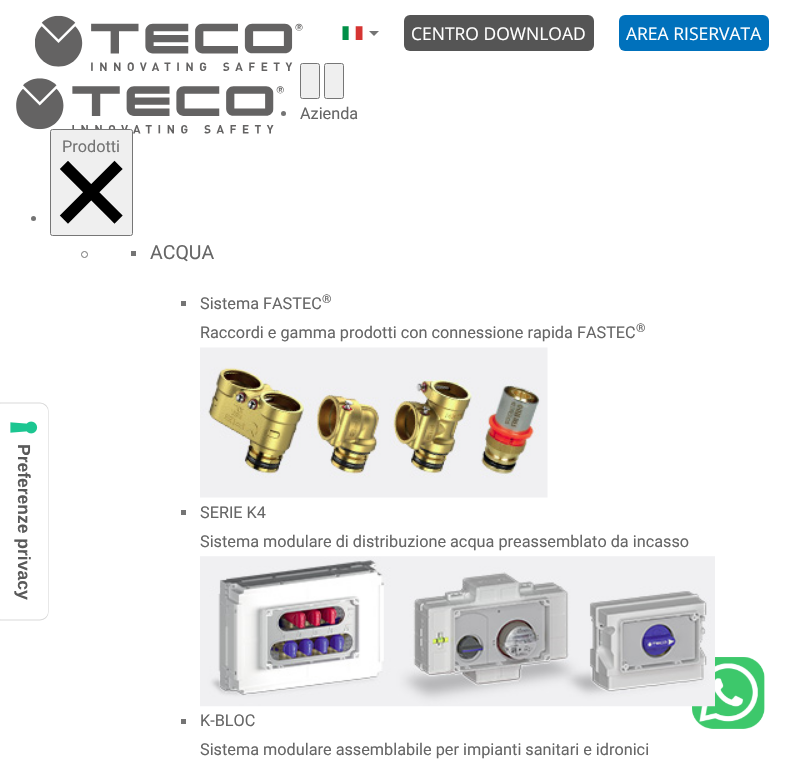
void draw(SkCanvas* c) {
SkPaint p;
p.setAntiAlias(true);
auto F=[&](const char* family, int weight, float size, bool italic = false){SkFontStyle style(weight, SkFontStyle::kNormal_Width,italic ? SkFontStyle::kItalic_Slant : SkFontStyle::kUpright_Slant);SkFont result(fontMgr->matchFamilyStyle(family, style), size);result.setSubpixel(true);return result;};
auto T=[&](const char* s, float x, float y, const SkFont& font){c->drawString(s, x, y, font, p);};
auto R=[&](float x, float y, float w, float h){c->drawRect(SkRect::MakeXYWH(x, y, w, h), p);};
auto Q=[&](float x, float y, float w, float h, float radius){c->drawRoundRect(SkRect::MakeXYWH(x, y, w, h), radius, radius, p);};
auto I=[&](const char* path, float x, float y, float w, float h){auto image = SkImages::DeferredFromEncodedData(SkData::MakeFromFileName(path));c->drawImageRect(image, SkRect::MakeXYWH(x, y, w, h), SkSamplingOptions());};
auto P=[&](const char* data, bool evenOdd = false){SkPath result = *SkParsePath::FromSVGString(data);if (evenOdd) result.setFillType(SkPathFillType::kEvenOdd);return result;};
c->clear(0xffffffff);
I("1.png",35,15,268,56);
I("2.png",342,26,21,14);
p.setColor(0xff747474);
c->drawPath(P("M369 31h10l-5 5z"),p);
p.setColor(0xff555555);
Q(404,15,190,36,6);
auto f1 = F("Open Sans",400,17.5);
p.setColor(0xffffffff);
T("CENTRO DOWNLOAD",411,40,f1);
p.setColor(0xff0071bc);
Q(619,15,150,36,6);
p.setColor(0xffffffff);
T("AREA RISERVATA",626,40,f1);
p.setStroke(true);
p.setStrokeWidth(1.2);
p.setColor(0xffd9d9d9);
c->drawPath(P("M48 411v201c0 4.5-3.5 8-8 8h-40.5v-217h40.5c4.5 0 8 4 8 8z"),p);
p.setStroke(false);
p.setColor(0xffffffff);
c->drawPath(P("M48 411v201c0 4-4 7-8 7h-40v-215h40c4 0 8 3 8 7z"),p);
I("3.png",10,421,28,13);
auto f2 = F("Liberation Sans",700,17.5);
p.setColor(0xff595959);
c->save();
c->rotate(90,18,444);
T("Preferenze privacy",18,444,f2);
c->restore();
I("4.png",16,78,268,56);
p.setColor(0xffefefef);
c->drawRoundRect(SkRect::MakeXYWH(300.5,63.5,19,35),2,2,p);
p.setStroke(true);
p.setStrokeWidth(1);
p.setColor(0xff767676);
c->drawRoundRect(SkRect::MakeXYWH(300.5,63.5,19,35),2,2,p);
p.setStroke(false);
p.setColor(0xffefefef);
c->drawRoundRect(SkRect::MakeXYWH(324.5,63.5,19,35),2,2,p);
p.setStroke(true);
p.setColor(0xff767676);
c->drawRoundRect(SkRect::MakeXYWH(324.5,63.5,19,35),2,2,p);
p.setStroke(false);
p.setColor(0xff747474);
c->drawCircle(283.5,113.5,2.5,p);
auto f3 = F("Roboto",400,16.25);
p.setColor(0xff666666);
T("Azienda",300,119,f3);
p.setColor(0xffefefef);
c->drawRoundRect(SkRect::MakeXYWH(50.5,129.5,82,106),2,2,p);
p.setStroke(true);
p.setColor(0xff767676);
c->drawRoundRect(SkRect::MakeXYWH(50.5,129.5,82,106),2,2,p);
p.setStroke(false);
p.setColor(0xff747474);
T("Prodotti",62,152,f3);
p.setStroke(true);
p.setStrokeWidth(11.6);
p.setStrokeCap(SkPaint::kSquare_Cap);
p.setColor(0xff000000);
c->drawPath(P("M68 169l46.5 46.5m0-46.5l-46.5 46.5"),p);
p.setStroke(false);
p.setColor(0xff747474);
c->drawCircle(33.5,218.5,2.5,p);
p.setStroke(true);
p.setStrokeWidth(1);
p.setStrokeCap(SkPaint::kButt_Cap);
c->drawCircle(84.5,254.5,3,p);
p.setStroke(false);
R(131,251,5,5);
auto f4 = F("Roboto",400,19.5);
p.setColor(0xff666666);
T("ACQUA",150,259,f4);
p.setColor(0xff747474);
R(181,301,5,5);
p.setColor(0xff666666);
T("Sistema FASTEC",200,309,f3);
auto f5 = F("Roboto",400,12);
T("®",322,303,f5);
T("Raccordi e gamma prodotti con connessione rapida FASTEC",200,338,f3);
T("®",636,332,f5);
I("5.png",200,347,348,151);
p.setColor(0xff747474);
R(181,510,5,5);
p.setColor(0xff666666);
T("SERIE K4",200,518,f3);
T("Sistema modulare di distribuzione acqua preassemblato da incasso",200,547,f3);
I("7.png",692,657,73,72);
I("6.png",200,556,515,151);
p.setColor(0xff747474);
R(181,719,5,5);
p.setColor(0xff666666);
T("K-BLOC",200,726,f3);
T("Sistema modulare assemblabile per impianti sanitari e idronici",200,755,f3);
}
